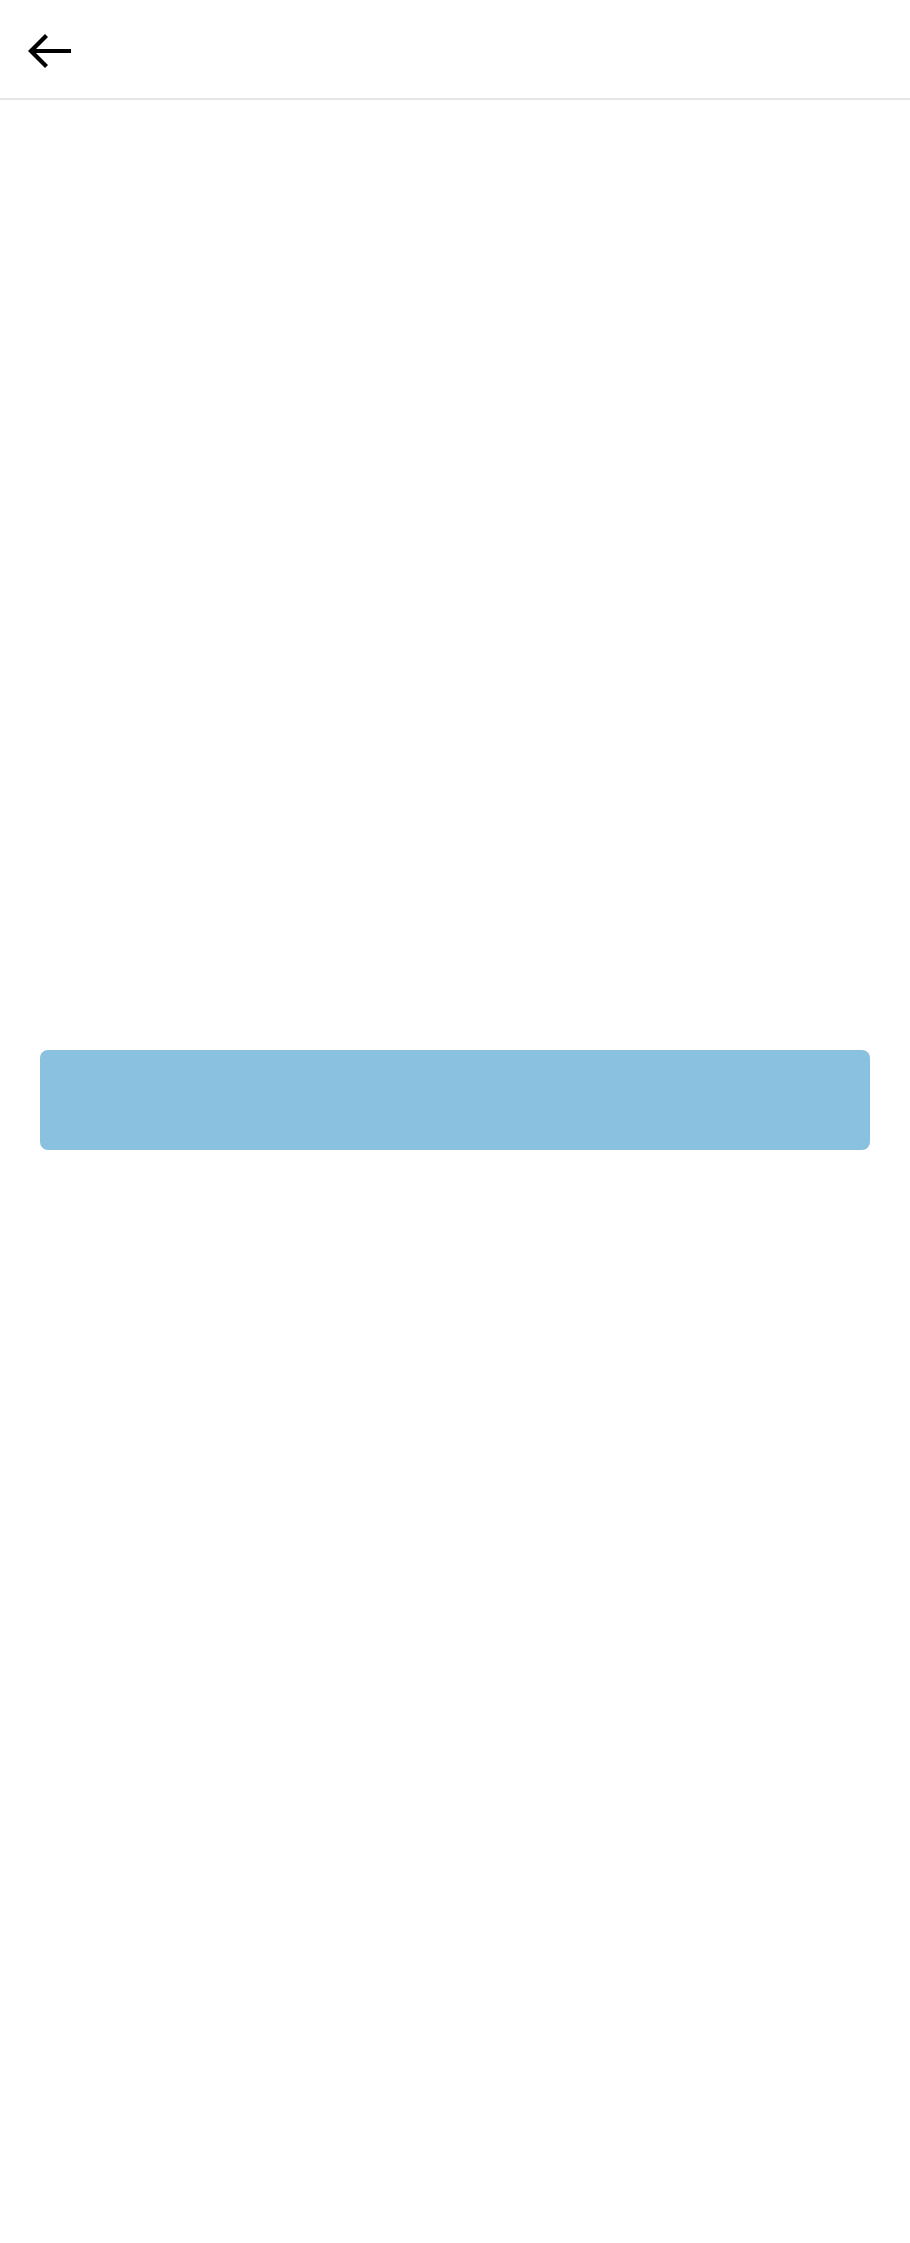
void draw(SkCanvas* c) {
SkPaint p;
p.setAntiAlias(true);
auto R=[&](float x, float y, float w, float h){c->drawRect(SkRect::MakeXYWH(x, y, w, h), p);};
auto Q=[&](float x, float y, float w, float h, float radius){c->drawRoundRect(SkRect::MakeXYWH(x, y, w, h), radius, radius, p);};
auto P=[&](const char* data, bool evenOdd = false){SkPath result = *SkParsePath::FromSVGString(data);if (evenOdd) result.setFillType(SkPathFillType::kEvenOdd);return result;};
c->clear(0xffffffff);
p.setColor(0xffe6e6e6);
R(0,98,910,2);
p.setColor(0xff000000);
c->drawPath(P("M45 34l3 3l-12 12h35v4h-35l12 12l-3 3l-17-17z"),p);
p.setColor(0xff8ac0e0);
Q(40,1050,830,100,8);
}
